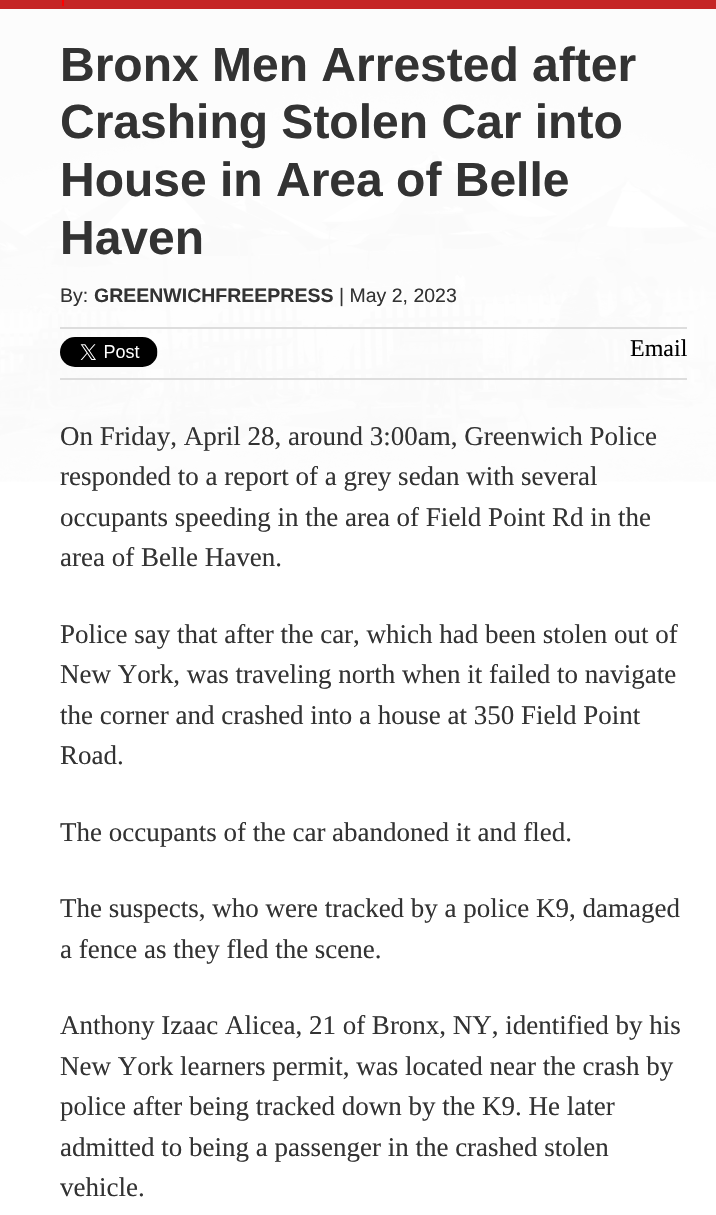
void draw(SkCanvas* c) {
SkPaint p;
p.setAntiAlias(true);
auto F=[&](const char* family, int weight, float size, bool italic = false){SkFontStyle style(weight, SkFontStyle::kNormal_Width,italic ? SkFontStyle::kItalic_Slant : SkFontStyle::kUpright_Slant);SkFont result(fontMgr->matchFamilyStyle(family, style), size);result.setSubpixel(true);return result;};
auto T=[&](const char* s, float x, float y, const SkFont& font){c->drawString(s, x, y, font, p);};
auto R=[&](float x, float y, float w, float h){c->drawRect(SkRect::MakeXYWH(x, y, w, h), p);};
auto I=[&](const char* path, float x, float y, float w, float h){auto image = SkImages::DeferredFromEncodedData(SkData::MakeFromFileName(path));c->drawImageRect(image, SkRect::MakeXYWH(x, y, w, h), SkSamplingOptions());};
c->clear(0xffffffff);
I("1.png",0,9,716,473);
p.setColor(0xffc52626);
R(0,0,716,9);
p.setColor(0xffff0000);
R(62,0,2,6);
auto f1 = F("Liberation Sans",700,48);
p.setColor(0xff333333);
T("Bronx Men Arrested after",60,81,f1);
T("Crashing Stolen Car into",60,138,f1);
T("House in Area of Belle",60,196,f1);
T("Haven",60,254,f1);
auto f2 = F("Liberation Sans",400,19.5);
T("By:",60,302,f2);
auto f3 = F("Liberation Sans",700,19.5);
T("GREENWICHFREEPRESS",94,302,f3);
T("| May 2, 2023",339,302,f2);
p.setColor(0xffdddddd);
R(60,327,627,2);
R(60,378,627,2);
I("2.png",60,337,98,30);
auto f4 = F("Liberation Serif",400,24);
p.setColor(0xff000000);
T("Email",630,356,f4);
auto f5 = F("Liberation Serif",400,27);
p.setColor(0xff333333);
T("On Friday, April 28, around 3:00am, Greenwich Police",60,445,f5);
T("responded to a report of a grey sedan with several",60,485,f5);
T("occupants speeding in the area of Field Point Rd in the",60,526,f5);
T("area of Belle Haven.",60,566,f5);
T("Police say that after the car, which had been stolen out of",60,643,f5);
T("New York, was traveling north when it failed to navigate",60,683,f5);
T("the corner and crashed into a house at 350 Field Point",60,724,f5);
T("Road.",60,764,f5);
T("The occupants of the car abandoned it and fled.",60,841,f5);
T("The suspects, who were tracked by a police K9, damaged",60,917,f5);
T("a fence as they fled the scene.",60,958,f5);
T("Anthony Izaac Alicea, 21 of Bronx, NY, identified by his",60,1034,f5);
T("New York learners permit, was located near the crash by",60,1075,f5);
T("police after being tracked down by the K9. He later",60,1115,f5);
T("admitted to being a passenger in the crashed stolen",60,1156,f5);
T("vehicle.",60,1196,f5);
}
